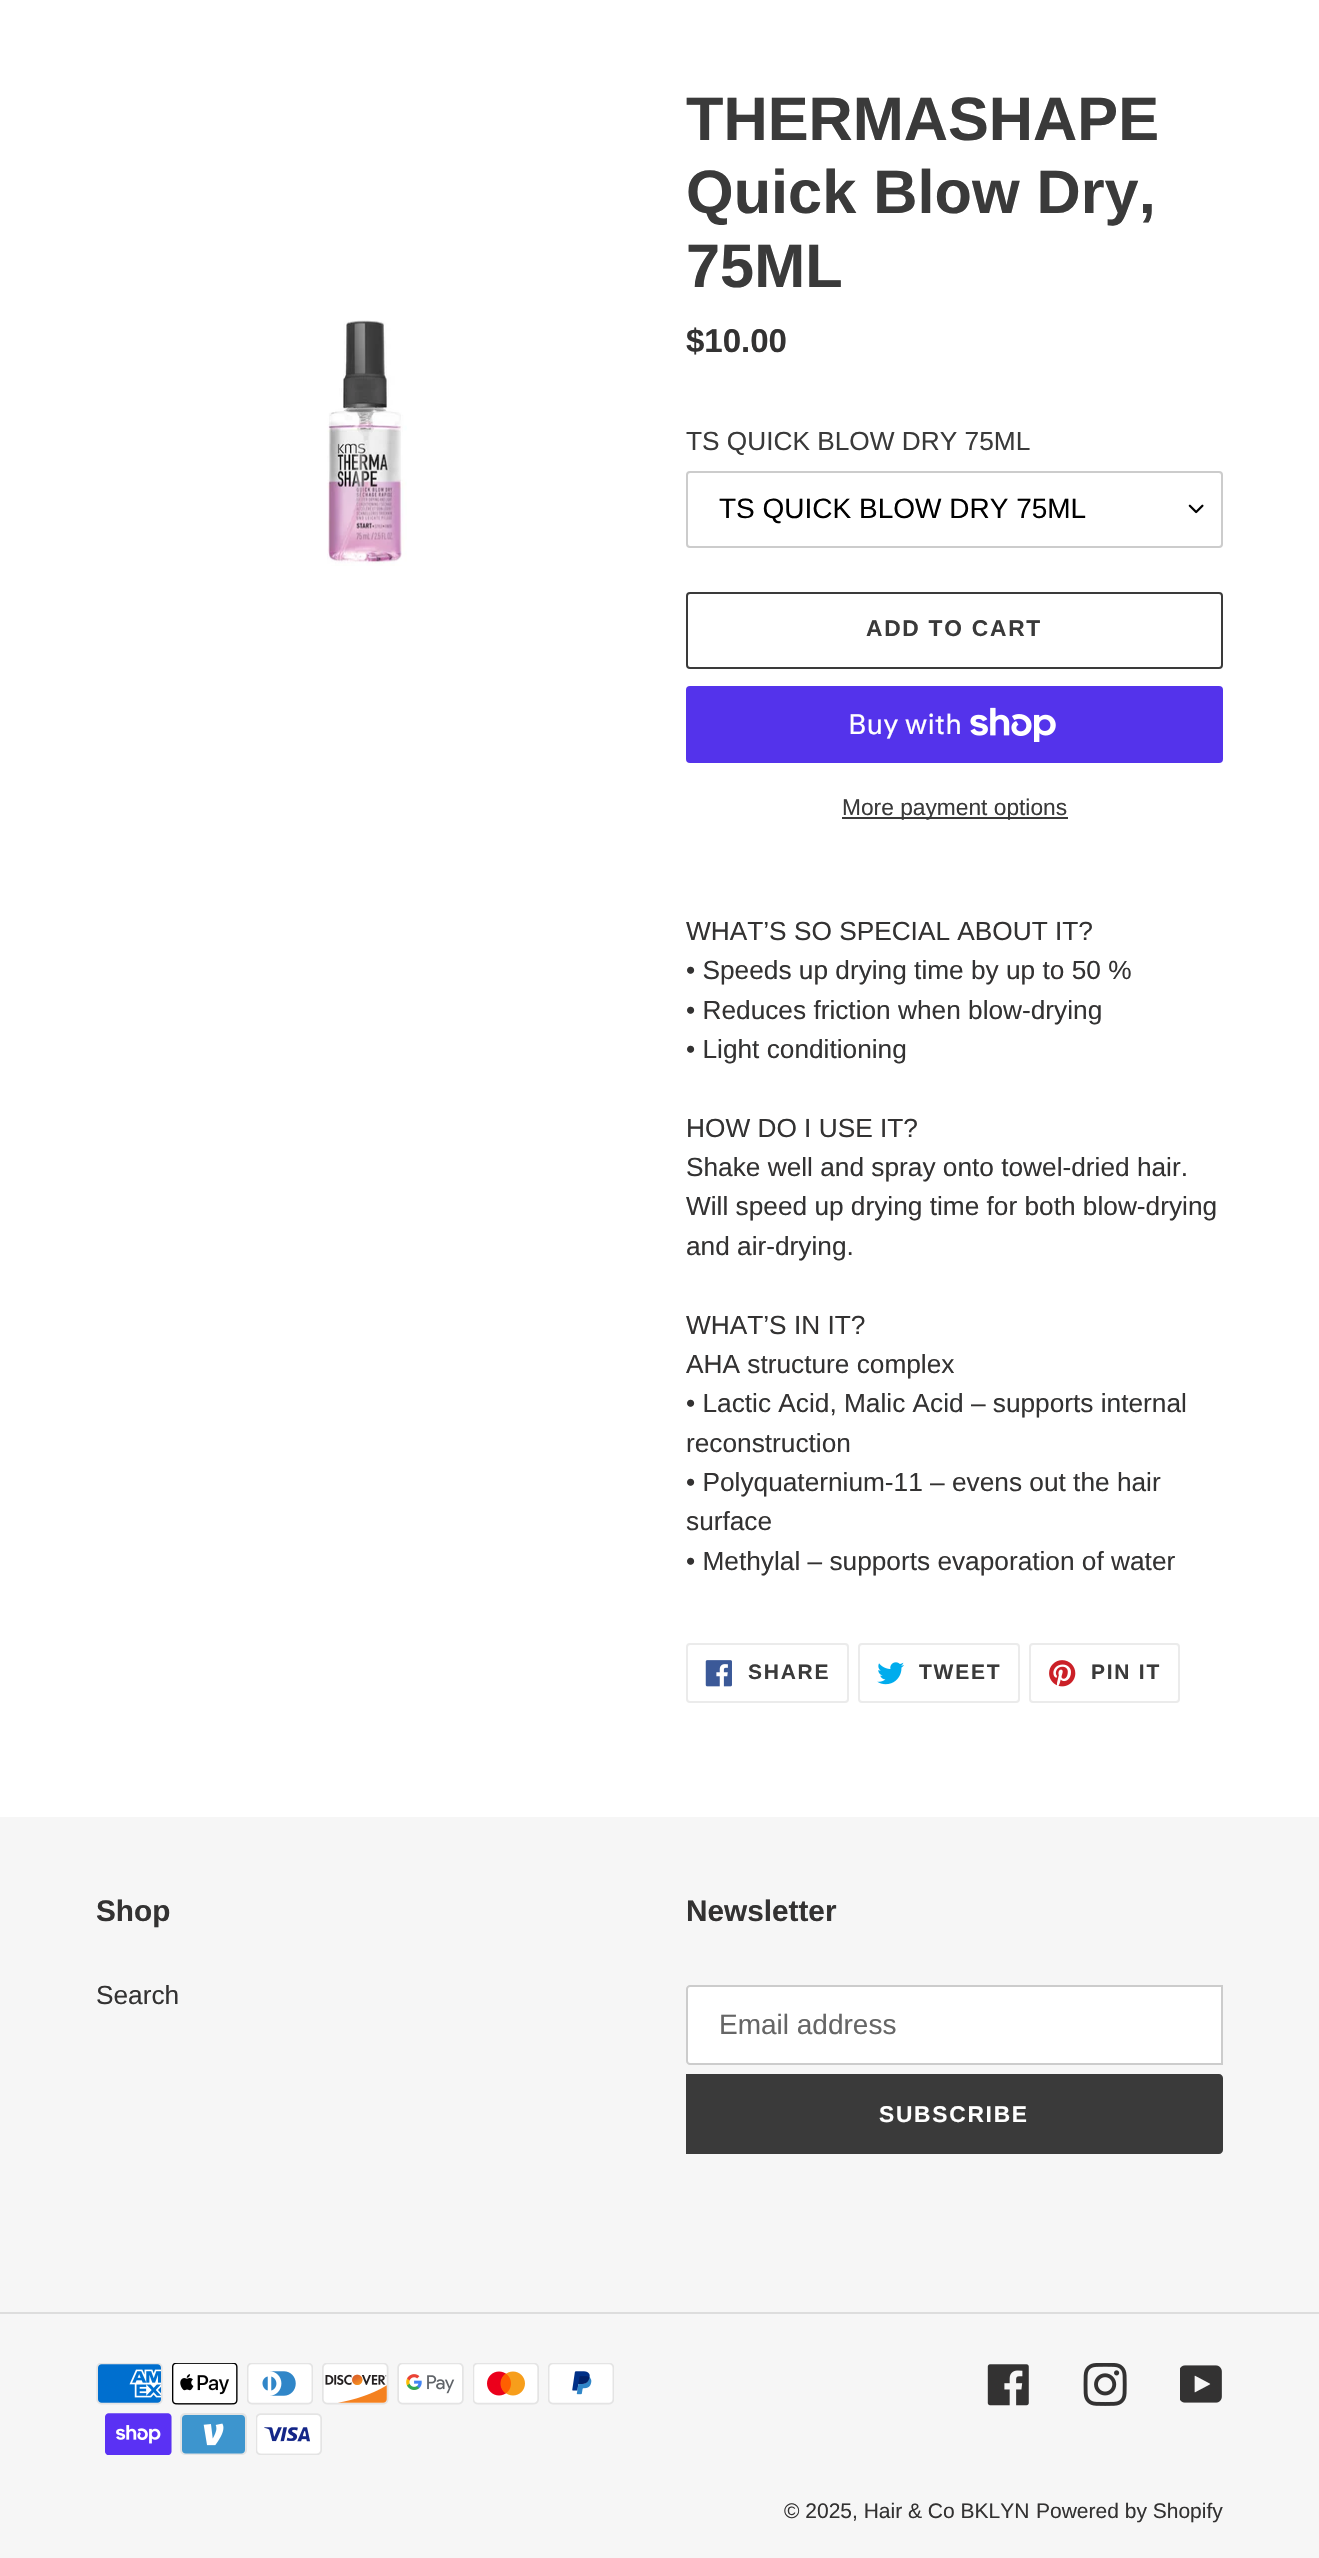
void draw(SkCanvas* c) {
SkPaint p;
p.setAntiAlias(true);
auto F=[&](const char* family, int weight, float size, bool italic = false){SkFontStyle style(weight, SkFontStyle::kNormal_Width,italic ? SkFontStyle::kItalic_Slant : SkFontStyle::kUpright_Slant);SkFont result(fontMgr->matchFamilyStyle(family, style), size);result.setSubpixel(true);return result;};
auto T=[&](const char* s, float x, float y, const SkFont& font){c->drawString(s, x, y, font, p);};
auto L=[&](const char* s, float x, float y, const SkFont& font, const SkPaint& ink, float letter, float word){std::vector<SkGlyphID> glyphs(font.countText(s, strlen(s), SkTextEncoding::kUTF8));std::vector<float> xs(glyphs.size());font.textToGlyphs(s, strlen(s), SkTextEncoding::kUTF8, glyphs);font.getXPos(glyphs, xs, x);float extra = 0;for (size_t i = 0; i < glyphs.size(); i++) {xs[i] += extra;extra += letter + word * (glyphs[i] == font.unicharToGlyph(' '));}c->drawTextBlob(SkTextBlob::MakeFromPosHGlyphs(glyphs, xs, y, font), 0, 0, ink);};
auto R=[&](float x, float y, float w, float h){c->drawRect(SkRect::MakeXYWH(x, y, w, h), p);};
auto Q=[&](float x, float y, float w, float h, float radius){c->drawRoundRect(SkRect::MakeXYWH(x, y, w, h), radius, radius, p);};
auto I=[&](const char* path, float x, float y, float w, float h){auto image = SkImages::DeferredFromEncodedData(SkData::MakeFromFileName(path));c->drawImageRect(image, SkRect::MakeXYWH(x, y, w, h), SkSamplingOptions());};
auto P=[&](const char* data, bool evenOdd = false){SkPath result = *SkParsePath::FromSVGString(data);if (evenOdd) result.setFillType(SkPathFillType::kEvenOdd);return result;};
c->clear(0xffffffff);
I("1.png",327,320,80,246);
auto f1 = F("Liberation Sans",700,61.25);
p.setColor(0xff3a3a3a);
T("THERMASHAPE",686,140,f1);
T("Quick Blow Dry,",686,213,f1);
T("75ML",686,287,f1);
auto f2 = F("Liberation Sans",700,33);
p.setColor(0xff333232);
T("$10.00",686,352,f2);
auto f3 = F("Liberation Sans",400,26.25);
p.setColor(0xff3a3a3a);
T("TS QUICK BLOW DRY 75ML",686,450,f3);
I("2.png",1188,504,16,10);
p.setStroke(true);
p.setStrokeWidth(2);
p.setColor(0xffcccccc);
c->drawRoundRect(SkRect::MakeXYWH(687,472,535,75),3,3,p);
auto f4 = F("Liberation Sans",400,28);
p.setStroke(false);
p.setColor(0xff000000);
T("TS QUICK BLOW DRY 75ML",719,518,f4);
p.setStroke(true);
p.setColor(0xff3a3a3a);
c->drawRoundRect(SkRect::MakeXYWH(687,593,535,75),3,3,p);
auto f5 = F("Liberation Sans",700,22.75);
p.setStroke(false);
L("ADD TO CART",866,636,f5,p,1.75,0);
p.setColor(0xff5433eb);
Q(686,686,537,77,4);
auto f6 = F("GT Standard",400,28);
p.setColor(0xffffffff);
T("Buy with",848,734,f6);
I("3.png",970,707,86,35);
p.setColor(0xff3a3a3a);
R(842,817,226,2);
auto f7 = F("Liberation Sans",400,22.75);
T("More payment options",842,815,f7);
p.setColor(0xff333232);
T("WHAT’S SO SPECIAL ABOUT IT?",686,940,f3);
T("• Speeds up drying time by up to 50 %",686,979,f3);
T("• Reduces friction when blow-drying",686,1019,f3);
T("• Light conditioning",686,1058,f3);
T("HOW DO I USE IT?",686,1137,f3);
T("Shake well and spray onto towel-dried hair.",686,1176,f3);
T("Will speed up drying time for both blow-drying",686,1215,f3);
T("and air-drying.",686,1255,f3);
T("WHAT’S IN IT?",686,1334,f3);
T("AHA structure complex",686,1373,f3);
T("• Lactic Acid, Malic Acid – supports internal",686,1412,f3);
T("reconstruction",686,1452,f3);
T("• Polyquaternium-11 – evens out the hair",686,1491,f3);
T("surface",686,1530,f3);
T("• Methylal – supports evaporation of water",686,1570,f3);
p.setStroke(true);
p.setColor(0xffebebeb);
c->drawRoundRect(SkRect::MakeXYWH(687,1644,161,58),3,3,p);
I("4.png",705,1660,27,27);
auto f8 = F("Liberation Sans",700,21);
p.setStroke(false);
p.setColor(0xff3a3a3a);
L("SHARE",748,1679,f8,p,1.75,0);
p.setStroke(true);
p.setColor(0xffebebeb);
c->drawRoundRect(SkRect::MakeXYWH(859,1644,160,58),3,3,p);
I("5.png",877,1662,27,23);
p.setStroke(false);
p.setColor(0xff3a3a3a);
L("TWEET",919,1679,f8,p,1.75,0);
p.setStroke(true);
p.setColor(0xffebebeb);
c->drawRoundRect(SkRect::MakeXYWH(1030,1644,149,58),3,3,p);
I("6.png",1049,1660,27,27);
p.setStroke(false);
p.setColor(0xff3a3a3a);
L("PIN IT",1091,1679,f8,p,1.75,0);
p.setColor(0xfff6f6f6);
R(0,1817,1319,741);
auto f9 = F("Liberation Sans",700,29.75);
p.setColor(0xff333232);
T("Shop",96,1921,f9);
T("Search",96,2004,f3);
T("Newsletter",686,1921,f9);
p.setColor(0xffffffff);
c->drawPath(P("M690 1986h532v78h-532c-1.5 0-3-1.5-3-3v-72c0-1.5 1.5-3 3-3z"),p);
p.setStroke(true);
p.setColor(0xffcccccc);
c->drawPath(P("M690 1986h532v78h-532c-1.5 0-3-1.5-3-3v-72c0-1.5 1.5-3 3-3z"),p);
p.setStroke(false);
p.setColor(0xff666666);
T("Email address",719,2034,f4);
p.setColor(0xff3a3a3a);
c->drawPath(P("M686 2074h533c2 0 4 2 4 4v72c0 2-2 4-4 4h-533z"),p);
p.setColor(0xffffffff);
L("SUBSCRIBE",879,2122,f5,p,1.75,0);
p.setColor(0xffdddddd);
R(0,2312,1319,2);
I("7.png",96,2363,67,42);
I("8.png",172,2363,66,42);
I("9.png",247,2363,66,42);
I("10.png",322,2363,67,42);
I("11.png",397,2363,67,42);
I("12.png",473,2363,66,42);
I("13.png",548,2363,66,42);
I("14.png",105,2413,67,42);
I("15.png",180,2413,67,42);
I("16.png",256,2413,66,42);
I("17.png",987,2364,42,42);
I("18.png",1083,2363,44,43);
I("19.png",1180,2365,42,38);
auto f10 = F("Liberation Sans",400,21);
p.setColor(0xff333232);
T("© 2025, Hair & Co BKLYN",784,2518,f10);
T("Powered by Shopify",1036,2518,f10);
}
